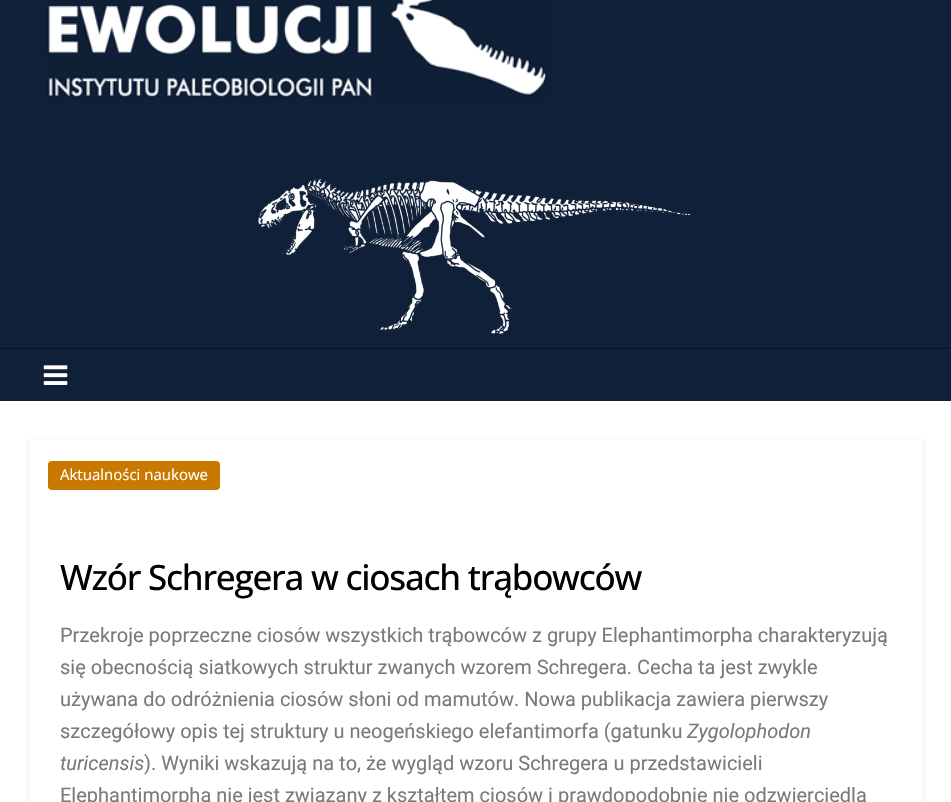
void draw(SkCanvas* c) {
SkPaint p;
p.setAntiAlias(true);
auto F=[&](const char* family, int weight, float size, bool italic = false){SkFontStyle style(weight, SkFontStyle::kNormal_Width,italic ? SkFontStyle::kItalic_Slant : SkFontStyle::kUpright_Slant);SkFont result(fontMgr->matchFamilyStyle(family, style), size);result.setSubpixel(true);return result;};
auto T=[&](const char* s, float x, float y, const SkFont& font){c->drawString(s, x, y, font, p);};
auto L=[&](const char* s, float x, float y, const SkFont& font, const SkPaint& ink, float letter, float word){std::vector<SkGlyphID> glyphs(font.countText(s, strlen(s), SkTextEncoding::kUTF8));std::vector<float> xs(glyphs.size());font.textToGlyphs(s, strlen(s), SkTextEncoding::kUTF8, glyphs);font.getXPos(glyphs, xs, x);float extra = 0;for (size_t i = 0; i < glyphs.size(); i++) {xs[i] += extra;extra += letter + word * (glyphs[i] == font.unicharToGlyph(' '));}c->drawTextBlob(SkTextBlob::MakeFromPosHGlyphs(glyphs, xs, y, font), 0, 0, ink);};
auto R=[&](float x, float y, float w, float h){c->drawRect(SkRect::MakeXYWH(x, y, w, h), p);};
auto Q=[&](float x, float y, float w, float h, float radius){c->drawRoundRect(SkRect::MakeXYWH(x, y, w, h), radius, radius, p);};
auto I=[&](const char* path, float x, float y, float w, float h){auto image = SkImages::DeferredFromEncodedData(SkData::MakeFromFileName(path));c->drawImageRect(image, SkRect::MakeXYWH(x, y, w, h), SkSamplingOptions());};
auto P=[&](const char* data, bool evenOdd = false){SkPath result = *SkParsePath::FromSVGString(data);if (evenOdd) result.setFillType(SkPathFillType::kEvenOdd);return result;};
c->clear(0xff102039);
I("1.png",47,0,501,99);
I("2.png",258,179,433,156);
p.setColor(0xff05142d);
R(0,348,951,1);
I("3.png",43,365,25,20);
p.setColor(0xffffffff);
R(0,401,951,401);
c->save();
c->clipPath(P("M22 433h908v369h-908zm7 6h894v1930h-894z",true),true);
p.setColor(0x1a000000);
p.setMaskFilter(SkMaskFilter::MakeBlur(kNormal_SkBlurStyle, 2));
c->drawRect(SkRect::MakeXYWH(29,440,894,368),p);
p.setMaskFilter(nullptr);
c->restore();
p.setColor(0xffc97800);
Q(48,461,172,29,4);
auto f1 = F("Open Sans",400,15);
p.setColor(0xffffffff);
T("Aktualności naukowe",60,480,f1);
auto f2 = F("Open Sans",500,35);
p.setColor(0xff000000);
L("Wzór Schregera w ciosach trąbowców",60,590,f2,p,-1.25,0);
auto f3 = F("Roboto",400,20);
p.setColor(0xff7a7a7a);
T("Przekroje poprzeczne ciosów wszystkich trąbowców z grupy Elephantimorpha charakteryzują",60,642,f3);
T("się obecnością siatkowych struktur zwanych wzorem Schregera. Cecha ta jest zwykle",60,674,f3);
T("używana do odróżnienia ciosów słoni od mamutów. Nowa publikacja zawiera pierwszy",60,706,f3);
T("szczegółowy opis tej struktury u neogeńskiego elefantimorfa (gatunku",60,738,f3);
auto f4 = F("Roboto",400,20,true);
T("Zygolophodon",687,738,f4);
T("turicensis",60,770,f4);
T("). Wyniki wskazują na to, że wygląd wzoru Schregera u przedstawicieli",144,770,f3);
T("Elephantimorpha nie jest związany z kształtem ciosów i prawdopodobnie nie odzwierciedla",60,802,f3);
}
